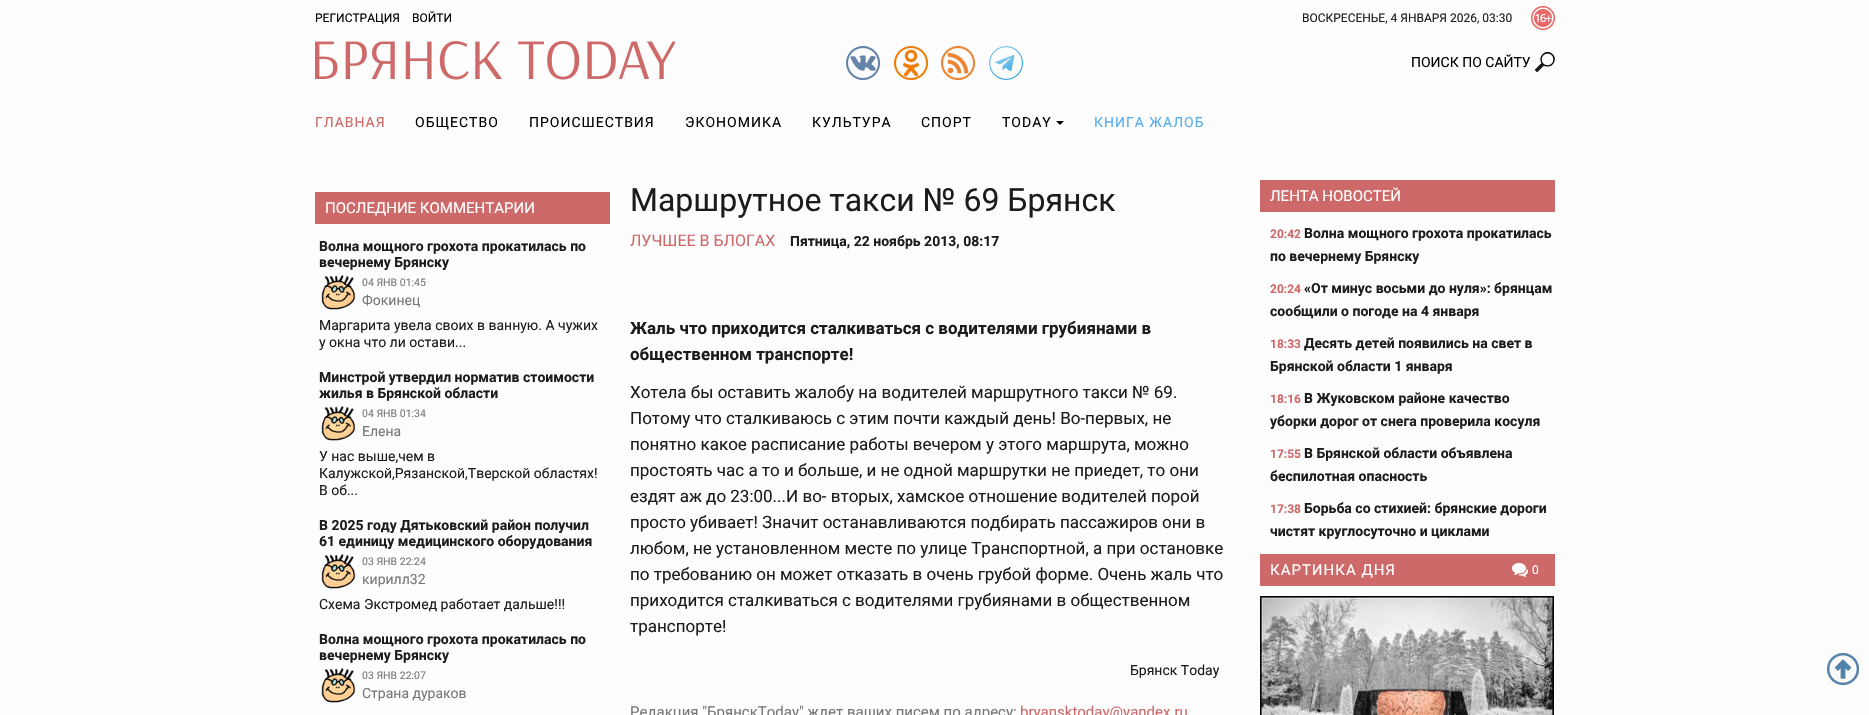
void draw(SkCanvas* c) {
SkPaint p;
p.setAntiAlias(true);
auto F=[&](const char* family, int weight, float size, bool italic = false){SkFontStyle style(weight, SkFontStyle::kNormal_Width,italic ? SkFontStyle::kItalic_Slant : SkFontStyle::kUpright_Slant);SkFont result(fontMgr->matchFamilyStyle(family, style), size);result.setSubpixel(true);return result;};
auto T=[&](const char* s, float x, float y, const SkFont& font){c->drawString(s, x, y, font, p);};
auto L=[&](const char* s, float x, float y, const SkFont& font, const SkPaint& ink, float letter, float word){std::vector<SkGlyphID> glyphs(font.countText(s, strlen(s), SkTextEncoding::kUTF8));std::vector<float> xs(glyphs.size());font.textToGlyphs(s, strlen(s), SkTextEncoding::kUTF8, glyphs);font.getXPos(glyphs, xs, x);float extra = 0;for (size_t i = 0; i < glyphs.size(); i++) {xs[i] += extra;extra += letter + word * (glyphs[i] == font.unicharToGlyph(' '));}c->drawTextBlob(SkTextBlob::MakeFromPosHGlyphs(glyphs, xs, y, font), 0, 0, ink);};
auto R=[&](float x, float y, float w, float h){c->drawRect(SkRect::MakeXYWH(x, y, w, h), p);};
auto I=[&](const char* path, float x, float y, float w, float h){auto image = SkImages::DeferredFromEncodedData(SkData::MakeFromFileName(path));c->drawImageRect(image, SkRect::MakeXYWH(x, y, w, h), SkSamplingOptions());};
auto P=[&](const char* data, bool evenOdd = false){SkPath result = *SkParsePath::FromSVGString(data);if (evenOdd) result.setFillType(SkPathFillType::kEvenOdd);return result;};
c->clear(0xfffdfdfd);
auto f1 = F("Roboto",400,12);
p.setColor(0xff000000);
T("РЕГИСТРАЦИЯ",315,22,f1);
T("ВОЙТИ",412,22,f1);
p.setColor(0xff1c1c1b);
T("ВОСКРЕСЕНЬЕ, 4 ЯНВАРЯ 2026, 03:30",1302,22,f1);
I("1.png",1531,6,24,24);
I("2.png",315,41,360,39);
I("3.png",846,46,34,34);
I("4.png",894,46,34,34);
I("5.png",941,46,34,34);
I("6.png",989,46,34,34);
I("7.png",1535,52,20,20);
auto f2 = F("Roboto",400,14);
p.setColor(0xff000000);
T("ПОИСК ПО САЙТУ",1411,67,f2);
p.setColor(0xffce6969);
L("ГЛАВНАЯ",315,127,f2,p,1,0);
p.setColor(0xff000000);
L("ОБЩЕСТВО",415,127,f2,p,1,0);
L("ПРОИСШЕСТВИЯ",529,127,f2,p,1,0);
L("ЭКОНОМИКА",685,127,f2,p,1,0);
L("КУЛЬТУРА",812,127,f2,p,1,0);
L("СПОРТ",921,127,f2,p,1,0);
L("TODAY",1002,127,f2,p,1,0);
c->drawPath(P("M1056 121h8l-4 4z"),p);
p.setColor(0xff55acee);
L("КНИГА ЖАЛОБ",1094,127,f2,p,1,0);
p.setColor(0xffce6969);
R(315,192,295,32);
auto f3 = F("Roboto",400,15);
p.setColor(0xffffffff);
T("ПОСЛЕДНИЕ КОММЕНТАРИИ",325,213,f3);
auto f4 = F("Roboto",700,14);
p.setColor(0xff1c1c1b);
T("Волна мощного грохота прокатилась по",319,251,f4);
T("вечернему Брянску",319,267,f4);
I("8.png",321,275,35,35);
auto f5 = F("Roboto",400,10.5);
p.setColor(0xff777777);
T("04 ЯНВ 01:45",362,286,f5);
T("Фокинец",362,305,f2);
p.setColor(0xff1c1c1b);
T("Маргарита увела своих в ванную. А чужих",319,330,f2);
T("у окна что ли остави...",319,347,f2);
T("Минстрой утвердил норматив стоимости",319,382,f4);
T("жилья в Брянской области",319,398,f4);
I("8.png",321,406,35,35);
p.setColor(0xff777777);
T("04 ЯНВ 01:34",362,417,f5);
T("Елена",362,436,f2);
p.setColor(0xff1c1c1b);
T("У нас выше,чем в",319,461,f2);
T("Калужской,Рязанской,Тверской областях!",319,478,f2);
T("В об...",319,495,f2);
T("В 2025 году Дятьковский район получил",319,530,f4);
T("61 единицу медицинского оборудования",319,546,f4);
I("8.png",321,554,35,35);
p.setColor(0xff777777);
T("03 ЯНВ 22:24",362,565,f5);
T("кирилл32",362,584,f2);
p.setColor(0xff1c1c1b);
T("Схема Экстромед работает дальше!!!",319,609,f2);
T("Волна мощного грохота прокатилась по",319,644,f4);
T("вечернему Брянску",319,660,f4);
I("8.png",321,668,35,35);
p.setColor(0xff777777);
T("03 ЯНВ 22:07",362,679,f5);
T("Страна дураков",362,698,f2);
auto f6 = F("Roboto",400,32);
p.setColor(0xff1c1c1b);
T("Маршрутное такси № 69 Брянск",630,211,f6);
auto f7 = F("Roboto",400,16);
p.setColor(0xffce6969);
T("ЛУЧШЕЕ В БЛОГАХ",630,246,f7);
p.setColor(0xff1c1c1b);
T("Пятница, 22 ноябрь 2013, 08:17",790,246,f4);
auto f8 = F("Roboto",700,17);
T("Жаль что приходится сталкиваться с водителями грубиянами в",630,334,f8);
T("общественном транспорте!",630,360,f8);
auto f9 = F("Roboto",400,17);
T("Хотела бы оставить жалобу на водителей маршрутного такси № 69.",630,398,f9);
T("Потому что сталкиваюсь с этим почти каждый день! Во-первых, не",630,424,f9);
T("понятно какое расписание работы вечером у этого маршрута, можно",630,450,f9);
T("простоять час а то и больше, и не одной маршрутки не приедет, то они",630,476,f9);
T("ездят аж до 23:00...И во- вторых, хамское отношение водителей порой",630,502,f9);
T("просто убивает! Значит останавливаются подбирать пассажиров они в",630,528,f9);
T("любом, не установленном месте по улице Транспортной, а при остановке",630,554,f9);
T("по требованию он может отказать в очень грубой форме. Очень жаль что",630,580,f9);
T("приходится сталкиваться с водителями грубиянами в общественном",630,606,f9);
T("транспорте!",630,632,f9);
T("Брянск Today",1130,675,f2);
p.setColor(0xff777777);
T("Редакция \"БрянскToday\" ждет ваших писем по адресу:",630,717,f3);
p.setColor(0xffce6969);
T("bryansktoday@yandex.ru",1020,717,f3);
R(1260,180,295,32);
p.setColor(0xffffffff);
T("ЛЕНТА НОВОСТЕЙ",1270,201,f3);
auto f10 = F("Roboto",700,12);
p.setColor(0xffce6969);
T("20:42",1270,238,f10);
p.setColor(0xff1c1c1b);
T("Волна мощного грохота прокатилась",1304,238,f4);
T("по вечернему Брянску",1270,261,f4);
p.setColor(0xffce6969);
T("20:24",1270,293,f10);
p.setColor(0xff1c1c1b);
T("«От минус восьми до нуля»: брянцам",1304,293,f4);
T("сообщили о погоде на 4 января",1270,316,f4);
p.setColor(0xffce6969);
T("18:33",1270,348,f10);
p.setColor(0xff1c1c1b);
T("Десять детей появились на свет в",1304,348,f4);
T("Брянской области 1 января",1270,371,f4);
p.setColor(0xffce6969);
T("18:16",1270,403,f10);
p.setColor(0xff1c1c1b);
T("В Жуковском районе качество",1304,403,f4);
T("уборки дорог от снега проверила косуля",1270,426,f4);
p.setColor(0xffce6969);
T("17:55",1270,458,f10);
p.setColor(0xff1c1c1b);
T("В Брянской области объявлена",1304,458,f4);
T("беспилотная опасность",1270,481,f4);
p.setColor(0xffce6969);
T("17:38",1270,513,f10);
p.setColor(0xff1c1c1b);
T("Борьба со стихией: брянские дороги",1304,513,f4);
T("чистят круглосуточно и циклами",1270,536,f4);
p.setColor(0xffce6969);
R(1260,554,295,32);
p.setColor(0xffffffff);
L("КАРТИНКА ДНЯ",1270,575,f3,p,1,0);
I("9.png",1512,563,16,14);
L("0",1532,574,f1,p,1,0);
I("10.png",1260,596,294,119);
I("11.png",1827,653,32,32);
}
